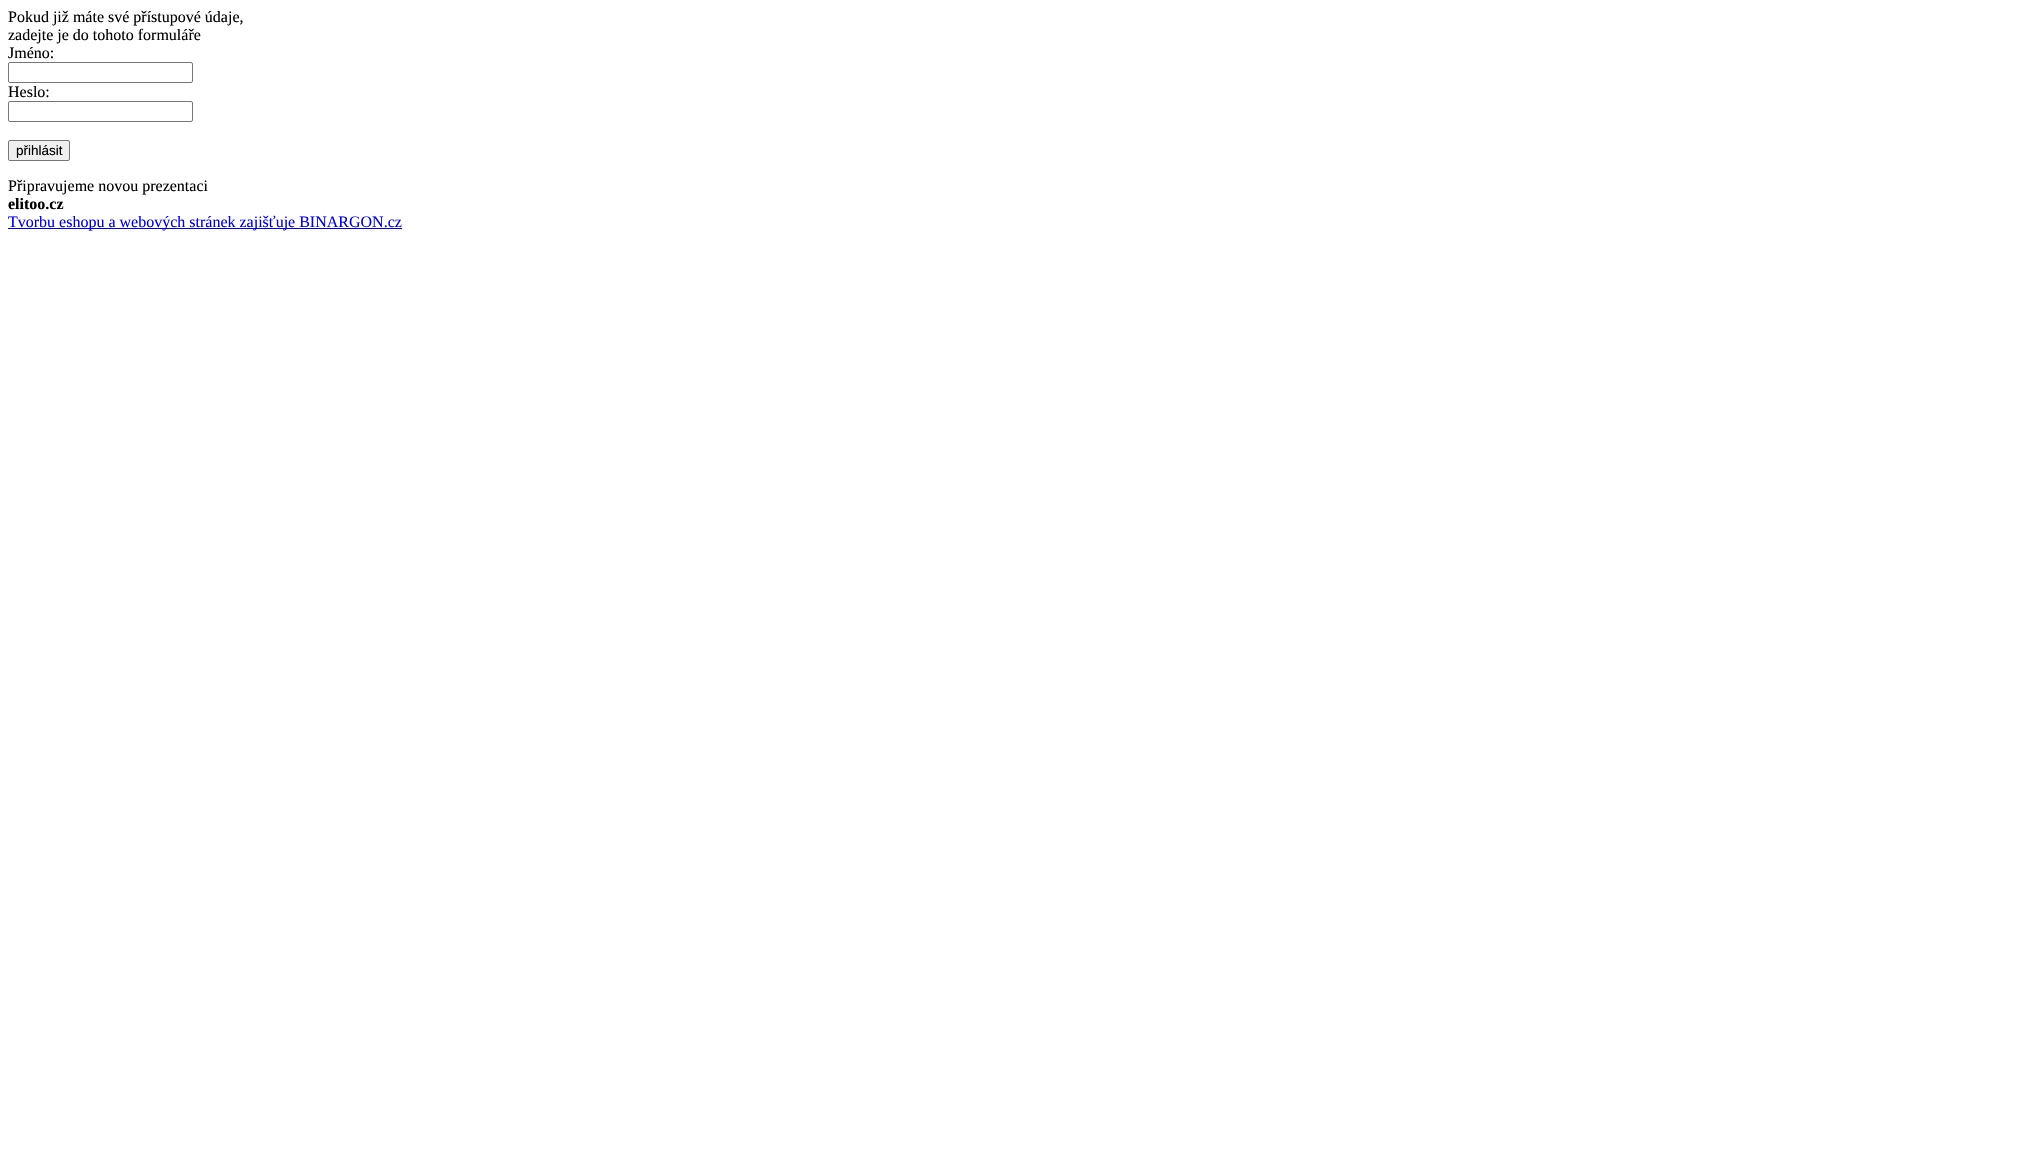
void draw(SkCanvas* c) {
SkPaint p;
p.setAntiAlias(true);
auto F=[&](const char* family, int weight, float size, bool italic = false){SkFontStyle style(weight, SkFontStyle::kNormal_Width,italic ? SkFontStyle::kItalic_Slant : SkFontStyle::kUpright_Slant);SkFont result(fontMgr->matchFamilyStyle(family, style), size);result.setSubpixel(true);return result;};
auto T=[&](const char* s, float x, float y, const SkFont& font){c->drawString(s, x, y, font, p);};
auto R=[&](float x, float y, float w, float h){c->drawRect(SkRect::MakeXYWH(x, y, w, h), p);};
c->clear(0xffffffff);
auto f1 = F("Liberation Serif",400,16);
p.setColor(0xff000000);
T("Pokud již máte své přístupové údaje,",8,22,f1);
T("zadejte je do tohoto formuláře",8,40,f1);
T("Jméno:",8,58,f1);
p.setStroke(true);
p.setStrokeWidth(1);
p.setColor(0xff767676);
c->drawRoundRect(SkRect::MakeXYWH(8.5,62.5,184,20),1.5,1.5,p);
p.setStroke(false);
p.setColor(0xff000000);
T("Heslo:",8,97,f1);
p.setStroke(true);
p.setColor(0xff767676);
c->drawRoundRect(SkRect::MakeXYWH(8.5,101.5,184,20),1.5,1.5,p);
p.setStroke(false);
p.setColor(0xffefefef);
c->drawRoundRect(SkRect::MakeXYWH(8.5,140.5,61,20),1.5,1.5,p);
p.setStroke(true);
p.setColor(0xff767676);
c->drawRoundRect(SkRect::MakeXYWH(8.5,140.5,61,20),1.5,1.5,p);
auto f2 = F("Liberation Sans",400,13.5);
p.setStroke(false);
p.setColor(0xff000000);
T("přihlásit",16,155,f2);
T("Připravujeme novou prezentaci",8,191,f1);
auto f3 = F("Liberation Serif",700,16);
T("elitoo.cz",8,209,f3);
p.setColor(0xff0000ee);
R(8,228,394,1);
T("Tvorbu eshopu a webových stránek zajišťuje BINARGON.cz",8,227,f1);
}
